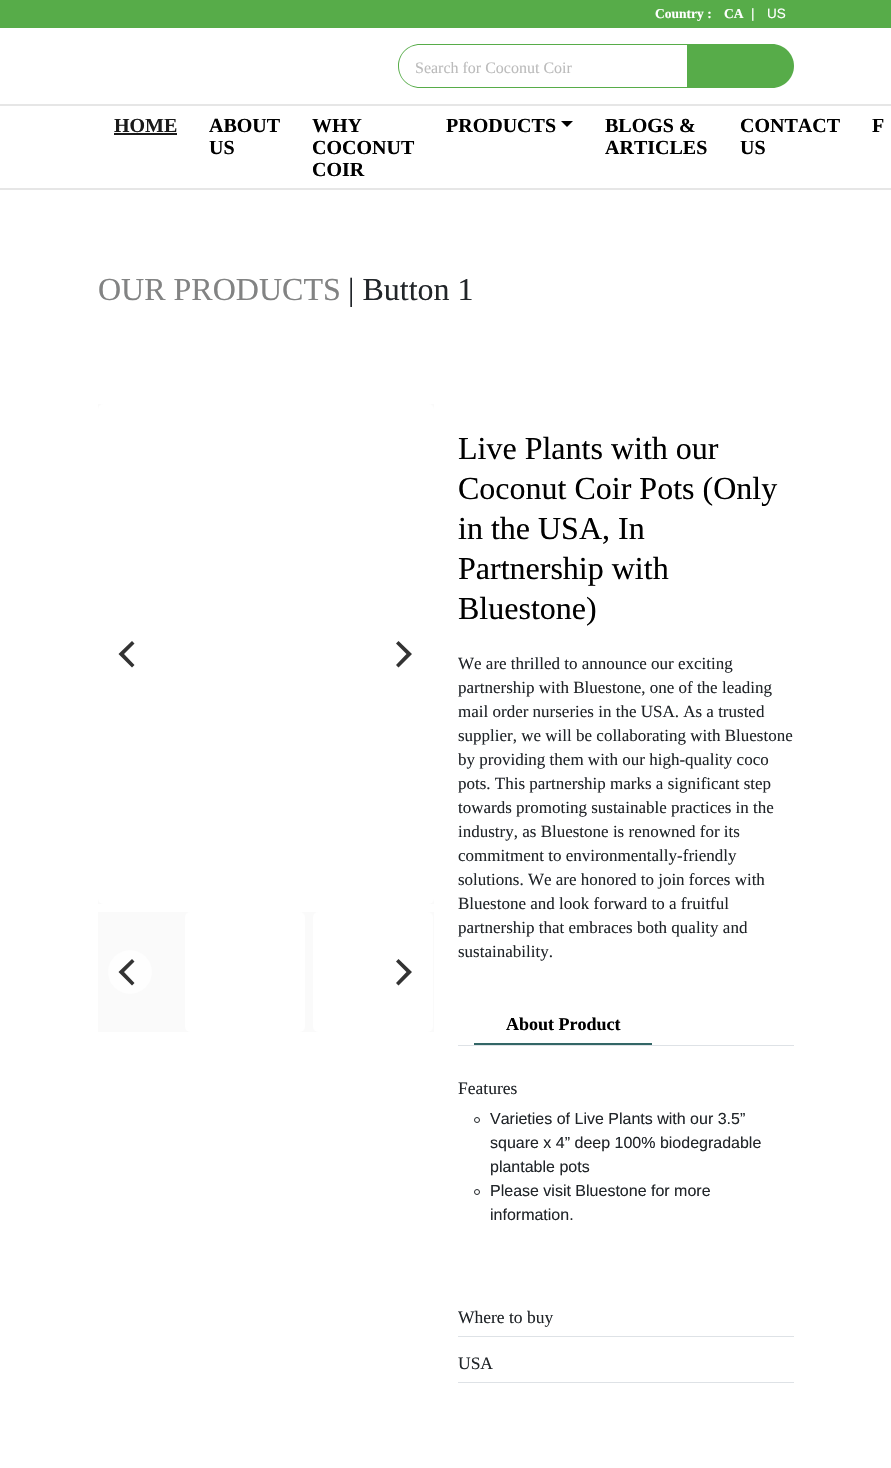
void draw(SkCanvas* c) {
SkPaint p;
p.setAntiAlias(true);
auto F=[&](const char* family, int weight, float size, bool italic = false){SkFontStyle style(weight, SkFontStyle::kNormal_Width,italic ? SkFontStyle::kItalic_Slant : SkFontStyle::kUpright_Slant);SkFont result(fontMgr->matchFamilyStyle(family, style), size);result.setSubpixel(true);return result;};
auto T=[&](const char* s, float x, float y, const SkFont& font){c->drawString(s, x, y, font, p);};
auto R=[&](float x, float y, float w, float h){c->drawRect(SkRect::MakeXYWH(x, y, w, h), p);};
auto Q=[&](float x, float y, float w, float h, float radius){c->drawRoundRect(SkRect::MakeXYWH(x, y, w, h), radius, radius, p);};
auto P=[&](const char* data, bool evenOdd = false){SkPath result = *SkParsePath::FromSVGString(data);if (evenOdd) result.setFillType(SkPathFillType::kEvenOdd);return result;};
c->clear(0xffffffff);
p.setColor(0xff57ac49);
R(0,0,891,28);
auto f1 = F("Liberation Serif",700,13.5);
p.setColor(0xffffffff);
T("Country :",655,18,f1);
T("CA",724,18,f1);
auto f2 = F("Liberation Sans",400,13.5);
T("|",751,18,f2);
T("US",767,18,f2);
p.setColor(0xff57ac49);
c->drawPath(P("M420 44h268v44h-268c-12 0-22-10-22-22c0-12 10-22 22-22zm0 1h268v42h-268c-12 0-21-9-21-21c0-12 9-21 21-21z",true),p);
auto f3 = F("Liberation Serif",400,16);
p.setColor(0xffbbbbbb);
T("Search for Coconut Coir",415,73,f3);
p.setColor(0xff57ac49);
c->drawPath(P("M687 44h85c12 0 22 10 22 22c0 12-10 22-22 22h-85z"),p);
p.setColor(0xffe6e6e6);
R(0,104,891,2);
R(0,188,891,2);
auto f4 = F("Liberation Serif",700,20);
p.setColor(0xff1a1a1a);
T("HOME",114,132,f4);
R(114,133,63,2);
p.setColor(0xff000000);
T("ABOUT",209,132,f4);
T("US",209,154,f4);
T("WHY",312,132,f4);
T("COCONUT",312,154,f4);
T("COIR",312,176,f4);
T("PRODUCTS",446,132,f4);
c->drawPath(P("M561 121h12l-6 6z"),p);
T("BLOGS &",605,132,f4);
T("ARTICLES",605,154,f4);
T("CONTACT",740,132,f4);
T("US",740,154,f4);
T("F",872,132,f4);
auto f5 = F("Liberation Serif",400,32);
p.setColor(0xff828383);
T("OUR PRODUCTS",98,300,f5);
p.setColor(0xff212529);
T("| Button 1",348,300,f5);
p.setColor(0xfffafafa);
R(98,404,336,500);
p.setColor(0xffffffff);
Q(98,404,336,500,5);
p.setColor(0xff333333);
c->drawPath(P("M118.5 654l13.5 13.5l2.5-2.5l-10.5-11l10.5-10.5l-2.5-2.5z"),p);
c->drawPath(P("M412 654l-13.5-13l-2.5 2.5l10.5 10.5l-10.5 11l2.5 2.5z"),p);
p.setColor(0xfffafafa);
R(98,912,336,120);
p.setColor(0xfffefefe);
c->drawCircle(130,972,22,p);
p.setColor(0xff333333);
c->drawPath(P("M118.5 972l13.5 13.5l2.5-2.5l-10.5-11l10.5-10.5l-2.5-2.5z"),p);
p.setColor(0xffffffff);
Q(185,912,120,120,5);
Q(313,912,120,120,5);
p.setColor(0xff333333);
c->drawPath(P("M412 972l-13.5-13l-2.5 2.5l10.5 10.5l-10.5 11l2.5 2.5z"),p);
p.setColor(0xff000000);
T("Live Plants with our",458,459,f5);
T("Coconut Coir Pots (Only",458,499,f5);
T("in the USA, In",458,539,f5);
T("Partnership with",458,579,f5);
T("Bluestone)",458,619,f5);
auto f6 = F("Liberation Serif",400,17);
p.setColor(0xff212529);
T("We are thrilled to announce our exciting",458,669,f6);
T("partnership with Bluestone, one of the leading",458,693,f6);
T("mail order nurseries in the USA. As a trusted",458,717,f6);
T("supplier, we will be collaborating with Bluestone",458,741,f6);
T("by providing them with our high-quality coco",458,765,f6);
T("pots. This partnership marks a significant step",458,789,f6);
T("towards promoting sustainable practices in the",458,813,f6);
T("industry, as Bluestone is renowned for its",458,837,f6);
T("commitment to environmentally-friendly",458,861,f6);
T("solutions. We are honored to join forces with",458,885,f6);
T("Bluestone and look forward to a fruitful",458,909,f6);
T("partnership that embraces both quality and",458,933,f6);
T("sustainability.",458,957,f6);
p.setColor(0xffdee2e6);
R(458,1045,336,1);
p.setColor(0xff336666);
R(474,1043,178,2);
auto f7 = F("Liberation Serif",700,18);
p.setColor(0xff000000);
T("About Product",506,1030,f7);
auto f8 = F("Liberation Serif",400,17.5);
p.setColor(0xff212529);
T("Features",458,1094,f8);
p.setStroke(true);
p.setStrokeWidth(1);
c->drawCircle(477,1120,2.5,p);
auto f9 = F("Liberation Sans",400,16);
p.setStroke(false);
T("Varieties of Live Plants with our 3.5”",490,1124,f9);
T("square x 4” deep 100% biodegradable",490,1148,f9);
T("plantable pots",490,1172,f9);
p.setStroke(true);
c->drawCircle(477,1192,2.5,p);
p.setStroke(false);
T("Please visit Bluestone for more",490,1196,f9);
T("information.",490,1220,f9);
p.setColor(0xffdee2e6);
R(458,1336,336,1);
p.setColor(0xff212529);
T("Where to buy",458,1323,f8);
p.setColor(0xffdee2e6);
R(458,1382,336,1);
p.setColor(0xff212529);
T("USA",458,1369,f8);
}
